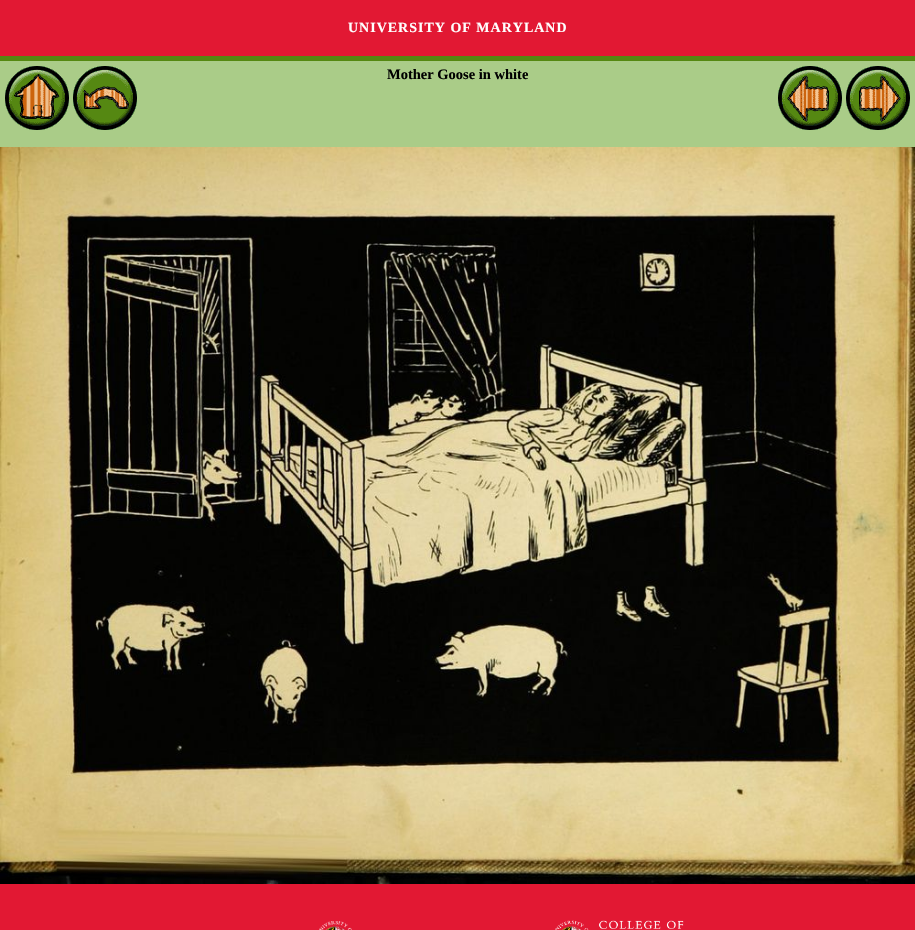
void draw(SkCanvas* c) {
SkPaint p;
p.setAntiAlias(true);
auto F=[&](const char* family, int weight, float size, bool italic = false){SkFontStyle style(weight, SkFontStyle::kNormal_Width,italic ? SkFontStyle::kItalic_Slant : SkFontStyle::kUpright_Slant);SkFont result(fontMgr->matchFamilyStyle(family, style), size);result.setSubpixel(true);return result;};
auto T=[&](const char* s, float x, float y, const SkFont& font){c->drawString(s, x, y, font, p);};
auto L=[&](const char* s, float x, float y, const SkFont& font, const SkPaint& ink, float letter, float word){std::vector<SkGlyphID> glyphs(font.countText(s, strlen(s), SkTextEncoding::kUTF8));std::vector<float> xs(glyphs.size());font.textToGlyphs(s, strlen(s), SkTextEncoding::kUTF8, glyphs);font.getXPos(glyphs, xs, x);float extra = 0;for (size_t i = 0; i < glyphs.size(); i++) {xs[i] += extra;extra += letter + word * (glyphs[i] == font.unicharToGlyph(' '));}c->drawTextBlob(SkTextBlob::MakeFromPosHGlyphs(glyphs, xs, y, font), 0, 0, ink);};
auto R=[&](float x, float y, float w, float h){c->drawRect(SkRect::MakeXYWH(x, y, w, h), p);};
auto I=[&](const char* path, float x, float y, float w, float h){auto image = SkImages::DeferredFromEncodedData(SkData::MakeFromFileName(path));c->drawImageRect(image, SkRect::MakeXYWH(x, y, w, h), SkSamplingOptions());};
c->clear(0xffaacc88);
p.setColor(0xffe21833);
R(0,0,915,56);
auto f1 = F("Liberation Serif",700,14);
p.setColor(0xffffffff);
L("UNIVERSITY OF MARYLAND",348,32,f1,p,1,0);
p.setColor(0xff558811);
R(0,56,915,5);
I("1.png",5,66,64,64);
I("2.png",73,66,64,64);
auto f2 = F("Liberation Serif",700,14.5);
p.setColor(0xff000000);
T("Mother Goose in white",387,79,f2);
I("3.png",778,66,64,64);
I("4.png",846,66,64,64);
I("5.png",0,147,915,737);
p.setColor(0xffe21833);
R(0,884,915,46);
I("6.png",319,921,33,9);
I("7.png",555,920,129,10);
}
